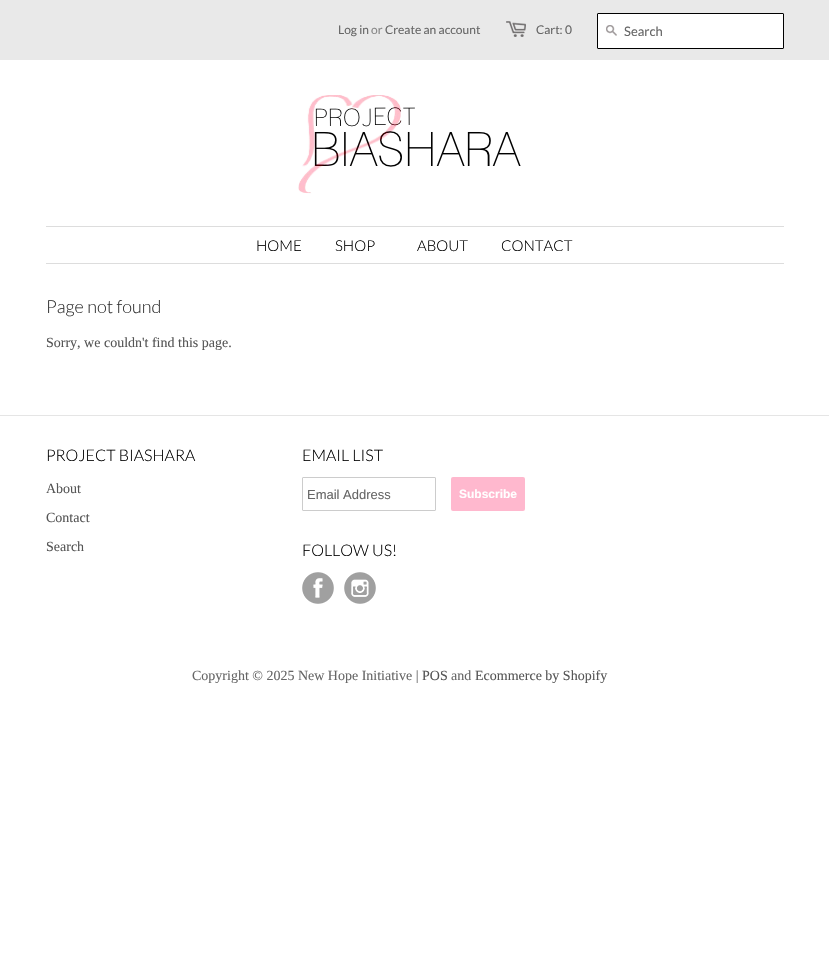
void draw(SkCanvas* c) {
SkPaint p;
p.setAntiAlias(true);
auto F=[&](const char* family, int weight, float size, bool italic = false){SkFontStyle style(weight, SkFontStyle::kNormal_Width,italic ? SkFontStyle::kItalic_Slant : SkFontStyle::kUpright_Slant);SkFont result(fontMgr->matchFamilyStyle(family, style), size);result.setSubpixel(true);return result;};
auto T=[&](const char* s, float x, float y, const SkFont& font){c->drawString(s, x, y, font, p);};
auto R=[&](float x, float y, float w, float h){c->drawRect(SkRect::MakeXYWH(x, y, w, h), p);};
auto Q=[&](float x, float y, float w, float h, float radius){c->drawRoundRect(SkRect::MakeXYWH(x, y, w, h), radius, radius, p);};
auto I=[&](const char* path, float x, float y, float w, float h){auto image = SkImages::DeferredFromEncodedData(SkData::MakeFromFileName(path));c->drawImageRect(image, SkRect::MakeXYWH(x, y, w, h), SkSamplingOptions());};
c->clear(0xffffffff);
p.setColor(0xffe9e9e9);
R(0,0,829,60);
auto f1 = F("Lato",400,12);
p.setColor(0xff666666);
T("Log in",338,34,f1);
p.setColor(0xff888888);
T("or",371,34,f1);
p.setColor(0xff666666);
T("Create an account",385,34,f1);
I("1.png",506,21,20,16);
T("Cart: 0",536,34,f1);
p.setColor(0xffffffff);
c->drawRoundRect(SkRect::MakeXYWH(597.5,13.5,186,35),.5,.5,p);
p.setStroke(true);
p.setStrokeWidth(1);
p.setColor(0xff000000);
c->drawRoundRect(SkRect::MakeXYWH(597.5,13.5,186,35),.5,.5,p);
I("2.png",606,25,11,11);
auto f2 = F("Lato",400,13);
p.setStroke(false);
p.setColor(0xff666666);
T("Search",624,36,f2);
I("3.png",298,95,223,99);
p.setColor(0xffdddddd);
R(46,226,738,1);
R(46,263,738,1);
auto f3 = F("Lato",300,15);
p.setColor(0xff000000);
T("HOME",256,251,f3);
T("SHOP",335,251,f3);
T("ABOUT",417,251,f3);
T("CONTACT",501,251,f3);
auto f4 = F("Lato",300,18);
p.setColor(0xff333333);
T("Page not found",46,313,f4);
auto f5 = F("Liberation Serif",400,14);
p.setColor(0xff555555);
T("Sorry, we couldn't find this page.",46,347,f5);
p.setColor(0xffe5e5e5);
R(0,415,829,1);
auto f6 = F("Lato",300,16);
p.setColor(0xff000000);
T("PROJECT BIASHARA",46,461,f6);
p.setColor(0xff555555);
T("About",46,493,f5);
T("Contact",46,522,f5);
T("Search",46,551,f5);
p.setColor(0xff000000);
T("EMAIL LIST",302,461,f6);
p.setStroke(true);
p.setColor(0xffcccccc);
c->drawRoundRect(SkRect::MakeXYWH(302.5,477.5,133,33),.5,.5,p);
auto f7 = F("Liberation Sans",400,13);
p.setStroke(false);
p.setColor(0xff666666);
T("Email Address",307,499,f7);
p.setColor(0xffffb8ce);
Q(451,477,74,34,2);
auto f8 = F("Liberation Sans",700,12);
p.setColor(0xffffffff);
T("Subscribe",459,498,f8);
p.setColor(0xff000000);
T("FOLLOW US!",302,556,f6);
I("4.png",302,572,32,32);
I("5.png",344,572,32,32);
p.setColor(0xff666666);
T("Copyright © 2025 New Hope Initiative |",192,680,f5);
p.setColor(0xff555555);
T("POS",422,680,f5);
p.setColor(0xff666666);
T("and",451,680,f5);
p.setColor(0xff555555);
T("Ecommerce by Shopify",475,680,f5);
}
